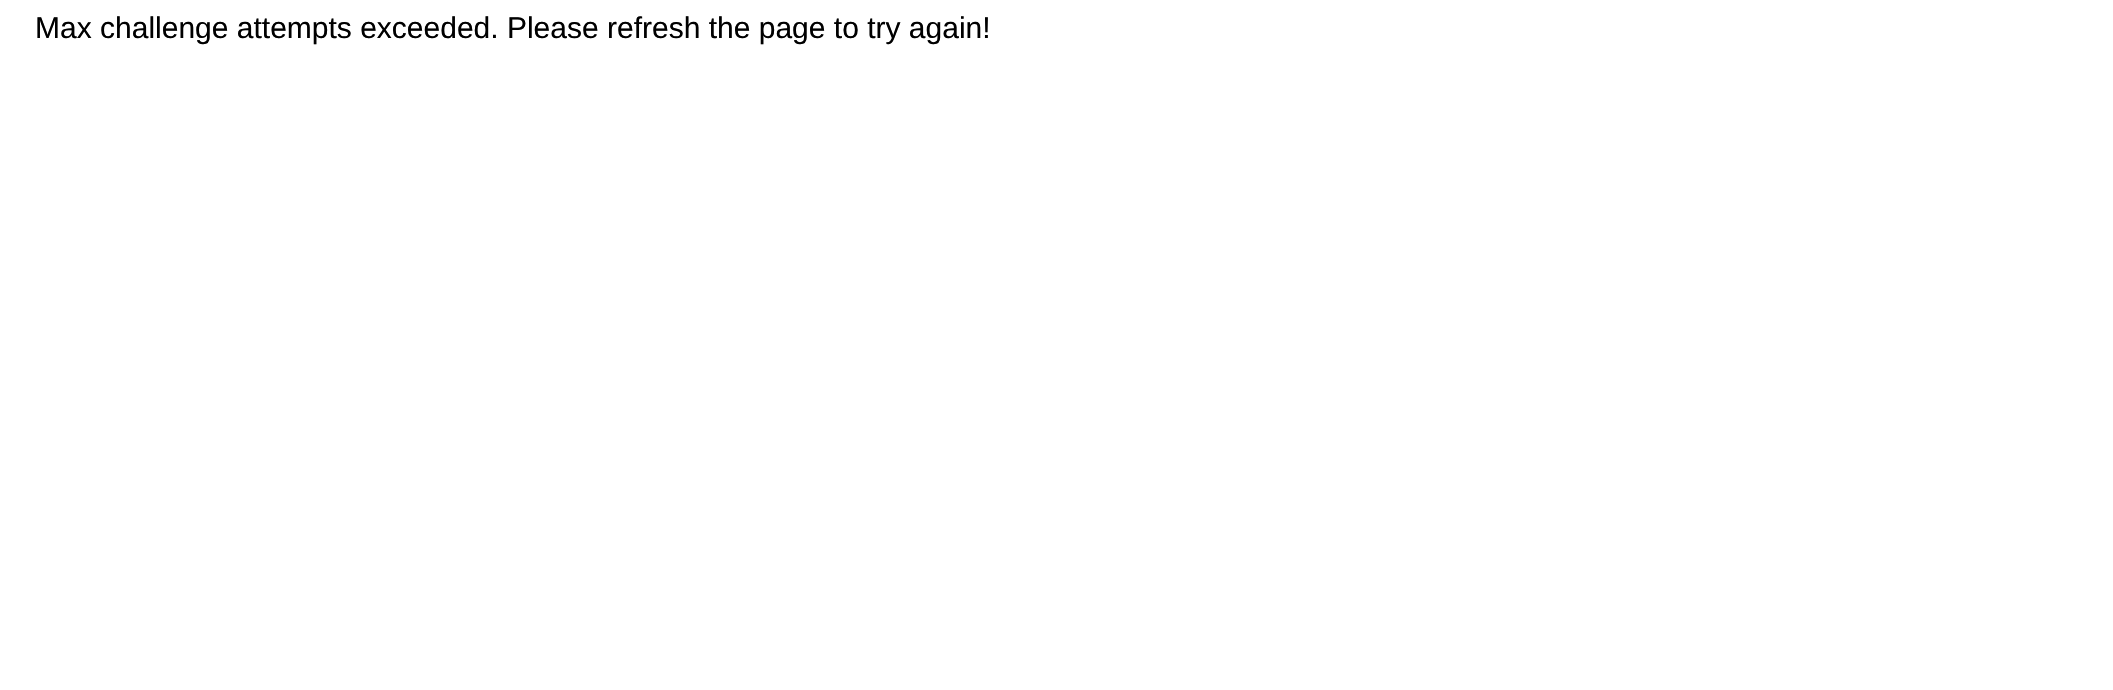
void draw(SkCanvas* c) {
SkPaint p;
p.setAntiAlias(true);
auto F=[&](const char* family, int weight, float size, bool italic = false){SkFontStyle style(weight, SkFontStyle::kNormal_Width,italic ? SkFontStyle::kItalic_Slant : SkFontStyle::kUpright_Slant);SkFont result(fontMgr->matchFamilyStyle(family, style), size);result.setSubpixel(true);return result;};
auto T=[&](const char* s, float x, float y, const SkFont& font){c->drawString(s, x, y, font, p);};
c->clear(0xffffffff);
auto f1 = F("Liberation Sans",400,30);
p.setColor(0xff000000);
T("Max challenge attempts exceeded. Please refresh the page to try again!",35,38,f1);
}
